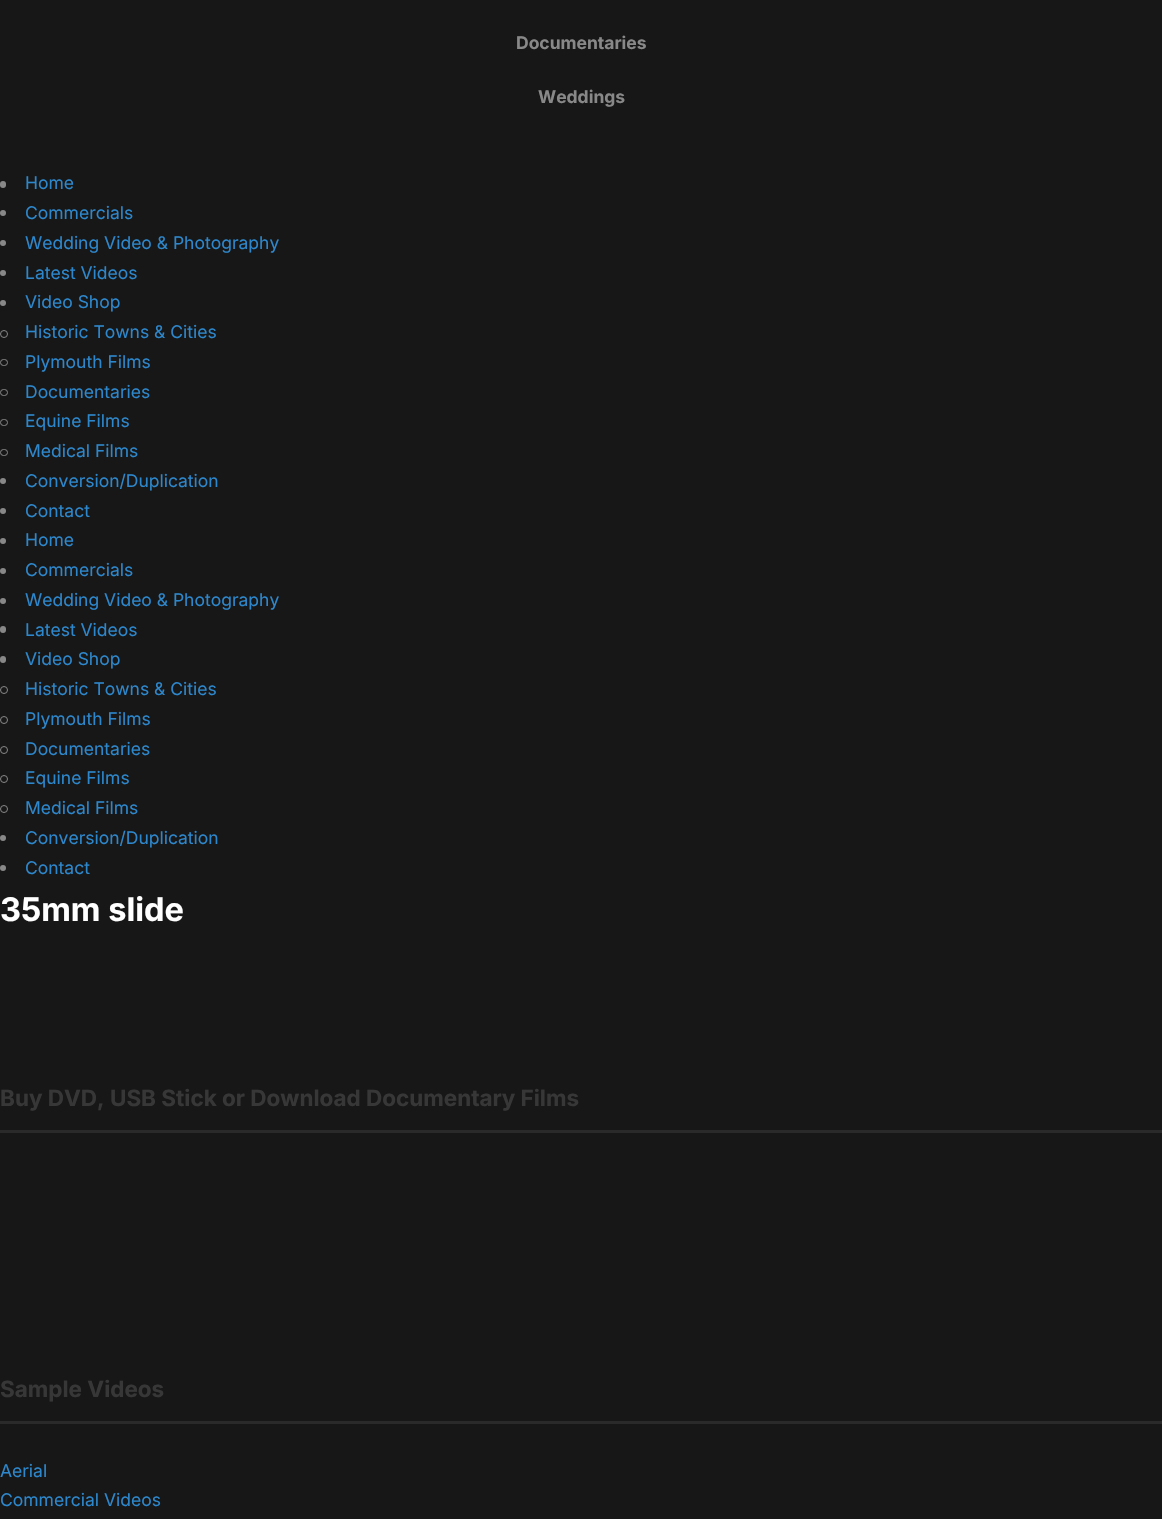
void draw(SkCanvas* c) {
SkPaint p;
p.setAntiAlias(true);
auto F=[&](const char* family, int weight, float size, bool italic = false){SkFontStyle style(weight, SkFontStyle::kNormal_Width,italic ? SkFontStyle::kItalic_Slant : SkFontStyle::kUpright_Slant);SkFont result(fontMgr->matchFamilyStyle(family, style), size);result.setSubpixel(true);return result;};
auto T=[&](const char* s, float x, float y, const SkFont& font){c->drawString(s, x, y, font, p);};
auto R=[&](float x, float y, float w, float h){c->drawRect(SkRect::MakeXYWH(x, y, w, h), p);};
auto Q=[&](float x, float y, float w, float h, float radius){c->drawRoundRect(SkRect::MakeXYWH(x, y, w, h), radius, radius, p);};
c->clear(0xff171717);
auto f1 = F("Inter",700,17.5);
p.setColor(0xff888888);
T("Documentaries",516,49,f1);
T("Weddings",538,103,f1);
Q(0,181,6,7,3);
auto f2 = F("Inter",400,17.5);
p.setColor(0xff2d87cc);
T("Home",25,189,f2);
p.setColor(0xff888888);
c->drawCircle(3,213,3,p);
p.setColor(0xff2d87cc);
T("Commercials",25,219,f2);
p.setColor(0xff888888);
c->drawCircle(3,243,3,p);
p.setColor(0xff2d87cc);
T("Wedding Video & Photography",25,249,f2);
p.setColor(0xff888888);
c->drawCircle(3,273,3,p);
p.setColor(0xff2d87cc);
T("Latest Videos",25,279,f2);
p.setColor(0xff888888);
c->drawCircle(3,303,3,p);
p.setColor(0xff2d87cc);
T("Video Shop",25,308,f2);
p.setStroke(true);
p.setStrokeWidth(1);
p.setColor(0xff888888);
c->drawCircle(4,334,3.5,p);
p.setStroke(false);
p.setColor(0xff2d87cc);
T("Historic Towns & Cities",25,338,f2);
p.setStroke(true);
p.setColor(0xff888888);
c->drawRoundRect(SkRect::MakeXYWH(.5,359.5,7,6),3,3,p);
p.setStroke(false);
p.setColor(0xff2d87cc);
T("Plymouth Films",25,368,f2);
p.setStroke(true);
p.setColor(0xff888888);
c->drawRoundRect(SkRect::MakeXYWH(.5,389.5,7,6),3,3,p);
p.setStroke(false);
p.setColor(0xff2d87cc);
T("Documentaries",25,398,f2);
p.setStroke(true);
p.setColor(0xff888888);
c->drawRoundRect(SkRect::MakeXYWH(.5,419.5,7,6),3,3,p);
p.setStroke(false);
p.setColor(0xff2d87cc);
T("Equine Films",25,427,f2);
p.setStroke(true);
p.setColor(0xff888888);
c->drawRoundRect(SkRect::MakeXYWH(.5,449.5,7,6),3,3,p);
p.setStroke(false);
p.setColor(0xff2d87cc);
T("Medical Films",25,457,f2);
p.setColor(0xff888888);
c->drawCircle(3,481,3,p);
p.setColor(0xff2d87cc);
T("Conversion/Duplication",25,487,f2);
p.setColor(0xff888888);
c->drawCircle(3,511,3,p);
p.setColor(0xff2d87cc);
T("Contact",25,517,f2);
p.setColor(0xff888888);
c->drawCircle(3,541,3,p);
p.setColor(0xff2d87cc);
T("Home",25,546,f2);
p.setColor(0xff888888);
c->drawCircle(3,571,3,p);
p.setColor(0xff2d87cc);
T("Commercials",25,576,f2);
p.setColor(0xff888888);
c->drawCircle(3,601,3,p);
p.setColor(0xff2d87cc);
T("Wedding Video & Photography",25,606,f2);
p.setColor(0xff888888);
Q(0,626,6,7,3);
p.setColor(0xff2d87cc);
T("Latest Videos",25,636,f2);
p.setColor(0xff888888);
Q(0,656,6,7,3);
p.setColor(0xff2d87cc);
T("Video Shop",25,665,f2);
p.setStroke(true);
p.setColor(0xff888888);
c->drawCircle(4,690,3.5,p);
p.setStroke(false);
p.setColor(0xff2d87cc);
T("Historic Towns & Cities",25,695,f2);
p.setStroke(true);
p.setColor(0xff888888);
c->drawCircle(4,720,3.5,p);
p.setStroke(false);
p.setColor(0xff2d87cc);
T("Plymouth Films",25,725,f2);
p.setStroke(true);
p.setColor(0xff888888);
c->drawCircle(4,750,3.5,p);
p.setStroke(false);
p.setColor(0xff2d87cc);
T("Documentaries",25,755,f2);
p.setStroke(true);
p.setColor(0xff888888);
c->drawCircle(4,779,3.5,p);
p.setStroke(false);
p.setColor(0xff2d87cc);
T("Equine Films",25,784,f2);
p.setStroke(true);
p.setColor(0xff888888);
c->drawCircle(4,809,3.5,p);
p.setStroke(false);
p.setColor(0xff2d87cc);
T("Medical Films",25,814,f2);
p.setColor(0xff888888);
c->drawCircle(3,838,3,p);
p.setColor(0xff2d87cc);
T("Conversion/Duplication",25,844,f2);
p.setColor(0xff888888);
c->drawCircle(3,868,3,p);
p.setColor(0xff2d87cc);
T("Contact",25,874,f2);
auto f3 = F("Inter",700,32.5);
p.setColor(0xffffffff);
T("35mm slide",0,921,f3);
p.setColor(0xff2a2a2a);
R(0,1130,1162,3);
auto f4 = F("Inter",700,22.5);
p.setColor(0xff373737);
T("Buy DVD, USB Stick or Download Documentary Films",0,1106,f4);
p.setColor(0xff2a2a2a);
R(0,1421,1162,3);
p.setColor(0xff373737);
T("Sample Videos",0,1397,f4);
p.setColor(0xff2d87cc);
T("Aerial",0,1477,f2);
T("Commercial Videos",0,1506,f2);
}
